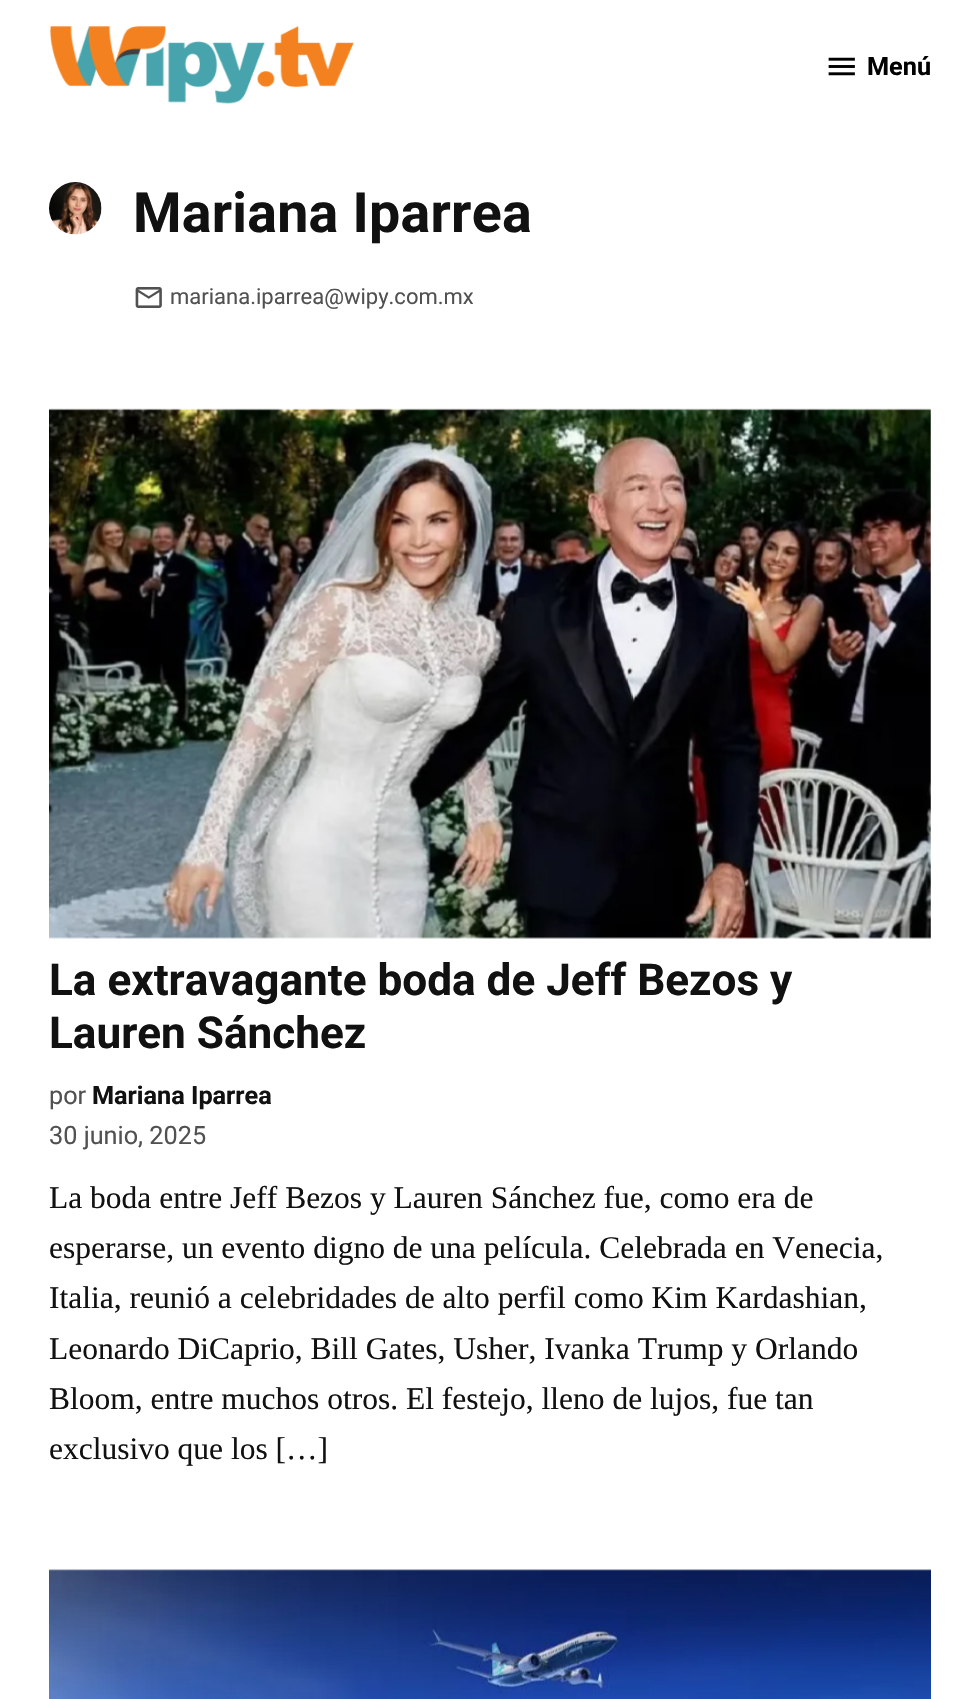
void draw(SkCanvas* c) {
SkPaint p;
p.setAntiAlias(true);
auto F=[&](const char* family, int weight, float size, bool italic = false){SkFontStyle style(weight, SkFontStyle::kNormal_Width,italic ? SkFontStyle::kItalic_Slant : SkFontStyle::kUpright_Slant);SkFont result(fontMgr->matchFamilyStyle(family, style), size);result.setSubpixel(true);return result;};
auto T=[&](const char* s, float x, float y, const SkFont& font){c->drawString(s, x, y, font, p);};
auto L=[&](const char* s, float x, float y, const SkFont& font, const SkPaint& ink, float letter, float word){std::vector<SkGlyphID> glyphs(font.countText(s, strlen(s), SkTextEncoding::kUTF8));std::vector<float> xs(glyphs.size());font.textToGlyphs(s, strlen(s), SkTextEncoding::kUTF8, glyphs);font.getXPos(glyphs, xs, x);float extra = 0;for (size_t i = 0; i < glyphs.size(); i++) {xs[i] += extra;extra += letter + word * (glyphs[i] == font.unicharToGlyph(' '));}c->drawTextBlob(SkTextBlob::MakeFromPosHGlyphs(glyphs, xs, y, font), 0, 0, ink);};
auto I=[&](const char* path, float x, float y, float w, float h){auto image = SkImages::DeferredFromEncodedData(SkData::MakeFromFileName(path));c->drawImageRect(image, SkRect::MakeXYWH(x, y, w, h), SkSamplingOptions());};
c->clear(0xffffffff);
I("1.png",49,26,305,78);
I("2.png",828,57,27,19);
auto f1 = F("Roboto",700,25.25);
p.setColor(0xff000000);
T("Menú",867,75,f1);
I("3.png",49,182,53,53);
auto f2 = F("Roboto",700,55.5);
p.setColor(0xff111111);
L("Mariana Iparrea",133,232,f2,p,.25,0);
I("4.png",135,287,27,21);
auto f3 = F("Roboto",400,22);
p.setColor(0xff515151);
T("mariana.iparrea@wipy.com.mx",170,304,f3);
I("5.png",49,408,882,531);
auto f4 = F("Roboto",700,44.1);
p.setColor(0xff111111);
T("La extravagante boda de Jeff Bezos y",49,995,f4);
T("Lauren Sánchez",49,1048,f4);
auto f5 = F("Roboto",400,25.25);
p.setColor(0xff515151);
T("por",49,1104,f5);
p.setColor(0xff111111);
T("Mariana Iparrea",92,1104,f1);
p.setColor(0xff515151);
T("30 junio, 2025",49,1144,f5);
auto f6 = F("Liberation Serif",400,31.5);
p.setColor(0xff111111);
T("La boda entre Jeff Bezos y Lauren Sánchez fue, como era de",49,1208,f6);
T("esperarse, un evento digno de una película. Celebrada en Venecia,",49,1258,f6);
T("Italia, reunió a celebridades de alto perfil como Kim Kardashian,",49,1308,f6);
T("Leonardo DiCaprio, Bill Gates, Usher, Ivanka Trump y Orlando",49,1359,f6);
T("Bloom, entre muchos otros. El festejo, lleno de lujos, fue tan",49,1409,f6);
T("exclusivo que los […]",49,1459,f6);
I("6.png",49,1569,882,130);
}
